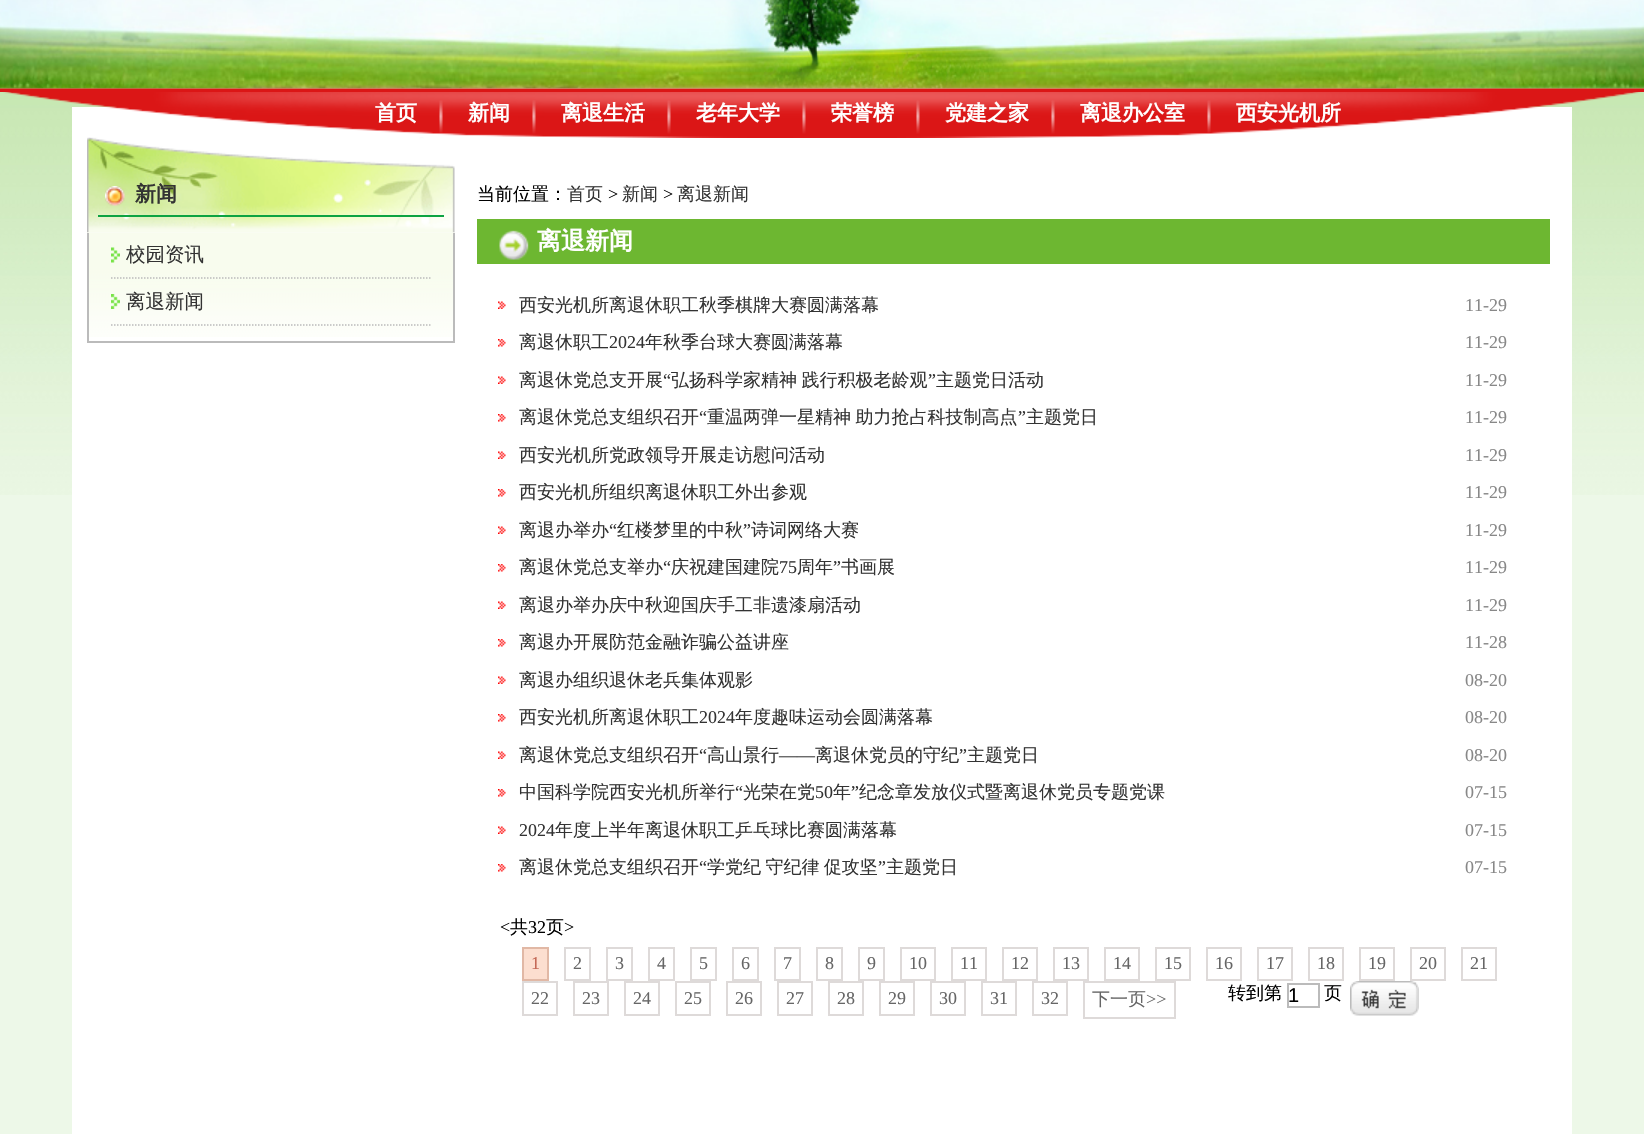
void draw(SkCanvas* c) {
SkPaint p;
p.setAntiAlias(true);
auto F=[&](const char* family, int weight, float size, bool italic = false){SkFontStyle style(weight, SkFontStyle::kNormal_Width,italic ? SkFontStyle::kItalic_Slant : SkFontStyle::kUpright_Slant);SkFont result(fontMgr->matchFamilyStyle(family, style), size);result.setSubpixel(true);return result;};
auto T=[&](const char* s, float x, float y, const SkFont& font){c->drawString(s, x, y, font, p);};
auto L=[&](const char* s, float x, float y, const SkFont& font, const SkPaint& ink, float letter, float word){std::vector<SkGlyphID> glyphs(font.countText(s, strlen(s), SkTextEncoding::kUTF8));std::vector<float> xs(glyphs.size());font.textToGlyphs(s, strlen(s), SkTextEncoding::kUTF8, glyphs);font.getXPos(glyphs, xs, x);float extra = 0;for (size_t i = 0; i < glyphs.size(); i++) {xs[i] += extra;extra += letter + word * (glyphs[i] == font.unicharToGlyph(' '));}c->drawTextBlob(SkTextBlob::MakeFromPosHGlyphs(glyphs, xs, y, font), 0, 0, ink);};
auto R=[&](float x, float y, float w, float h){c->drawRect(SkRect::MakeXYWH(x, y, w, h), p);};
auto I=[&](const char* path, float x, float y, float w, float h){auto image = SkImages::DeferredFromEncodedData(SkData::MakeFromFileName(path));c->drawImageRect(image, SkRect::MakeXYWH(x, y, w, h), SkSamplingOptions());};
auto P=[&](const char* data, bool evenOdd = false){SkPath result = *SkParsePath::FromSVGString(data);if (evenOdd) result.setFillType(SkPathFillType::kEvenOdd);return result;};
c->clear(0xffedf8e8);
I("1.png",0,88,1644,407);
I("2.png",0,0,1644,89);
p.setColor(0xffffffff);
R(72,107,1500,1027);
I("11.png",87,137,368,96);
I("3.png",0,88,1644,50);
p.setColor(0xffdb1616);
R(0,89,1644,3);
I("4.png",439,100,4,33);
auto f1 = F("WenQuanYi Zen Hei",700,21);
p.setColor(0xffffffff);
T("首页",375,120,f1);
I("5.png",532,100,4,34);
T("新闻",468,120,f1);
I("6.png",667,100,4,34);
T("离退生活",561,120,f1);
I("7.png",802,100,4,34);
T("老年大学",696,120,f1);
I("8.png",916,100,4,34);
T("荣誉榜",831,120,f1);
I("9.png",1051,100,4,34);
T("党建之家",945,120,f1);
I("10.png",1207,100,4,33);
T("离退办公室",1080,120,f1);
T("西安光机所",1236,120,f1);
p.setColor(0xff0da342);
R(98,215,346,2);
I("12.png",105,186,20,20);
p.setColor(0xff333333);
T("新闻",135,201,f1);
I("13.png",87,232,368,105);
p.setColor(0xffbbbbbb);
R(453,233,2,109);
R(87,341,368,2);
R(87,233,2,109);
I("14.png",111,247,9,16);
p.setStroke(true);
p.setStrokeWidth(1.5);
p.setPathEffect(SkDashPathEffect::Make({{1.5f,1.5f}}, 0));
c->drawPath(P("M111 278h321"),p);
p.setPathEffect(nullptr);
auto f2 = F("WenQuanYi Zen Hei",500,19.5);
p.setStroke(false);
p.setColor(0xff333333);
T("校园资讯",126,261,f2);
I("15.png",111,294,9,15);
p.setStroke(true);
p.setColor(0xffbbbbbb);
p.setPathEffect(SkDashPathEffect::Make({{1.5f,1.5f}}, 0));
c->drawPath(P("M111 325h321"),p);
p.setPathEffect(nullptr);
p.setStroke(false);
p.setColor(0xff333333);
T("离退新闻",126,308,f2);
auto f3 = F("WenQuanYi Zen Hei",500,18);
p.setColor(0xff000000);
T("当前位置：",477,200,f3);
p.setColor(0xff333333);
T("首页",567,200,f3);
auto f4 = F("Liberation Serif",400,18);
p.setColor(0xff000000);
T(">",608,200,f4);
p.setColor(0xff333333);
T("新闻",622,200,f3);
p.setColor(0xff000000);
T(">",663,200,f4);
p.setColor(0xff333333);
T("离退新闻",677,200,f3);
p.setColor(0xff6db731);
R(477,219,1073,45);
I("16.png",499,230,30,30);
auto f5 = F("WenQuanYi Zen Hei",700,24);
p.setColor(0xffffffff);
T("离退新闻",537,249,f5);
I("17.png",498,301,8,8);
p.setColor(0xff333333);
T("西安光机所离退休职工秋季棋牌大赛圆满落幕",519,311,f3);
p.setColor(0xff888888);
T("11-29",1465,311,f4);
I("18.png",498,339,8,8);
p.setColor(0xff333333);
T("离退休职工",519,348,f3);
T("2024",609,348,f4);
T("年秋季台球大赛圆满落幕",645,348,f3);
p.setColor(0xff888888);
T("11-29",1465,348,f4);
I("17.png",498,376,8,8);
p.setColor(0xff333333);
T("离退休党总支开展",519,386,f3);
T("“",663,386,f4);
L("弘扬科学家精神 践行积极老龄观",671,386,f3,p,0,-1);
T("”",928,386,f4);
T("主题党日活动",936,386,f3);
p.setColor(0xff888888);
T("11-29",1465,386,f4);
I("18.png",498,414,8,8);
p.setColor(0xff333333);
T("离退休党总支组织召开",519,423,f3);
T("“",699,423,f4);
L("重温两弹一星精神 助力抢占科技制高点",707,423,f3,p,0,-1);
T("”",1018,423,f4);
T("主题党日",1026,423,f3);
p.setColor(0xff888888);
T("11-29",1465,423,f4);
I("17.png",498,451,8,8);
p.setColor(0xff333333);
T("西安光机所党政领导开展走访慰问活动",519,461,f3);
p.setColor(0xff888888);
T("11-29",1465,461,f4);
I("18.png",498,489,8,8);
p.setColor(0xff333333);
T("西安光机所组织离退休职工外出参观",519,498,f3);
p.setColor(0xff888888);
T("11-29",1465,498,f4);
I("17.png",498,526,8,8);
p.setColor(0xff333333);
T("离退办举办",519,536,f3);
T("“",609,536,f4);
T("红楼梦里的中秋",617,536,f3);
T("”",743,536,f4);
T("诗词网络大赛",751,536,f3);
p.setColor(0xff888888);
T("11-29",1465,536,f4);
I("18.png",498,564,8,8);
p.setColor(0xff333333);
T("离退休党总支举办",519,573,f3);
T("“",663,573,f4);
T("庆祝建国建院",671,573,f3);
T("75",779,573,f4);
T("周年",797,573,f3);
T("”",833,573,f4);
T("书画展",841,573,f3);
p.setColor(0xff888888);
T("11-29",1465,573,f4);
I("17.png",498,601,8,8);
p.setColor(0xff333333);
T("离退办举办庆中秋迎国庆手工非遗漆扇活动",519,611,f3);
p.setColor(0xff888888);
T("11-29",1465,611,f4);
I("18.png",498,639,8,8);
p.setColor(0xff333333);
T("离退办开展防范金融诈骗公益讲座",519,648,f3);
p.setColor(0xff888888);
T("11-28",1465,648,f4);
I("17.png",498,676,8,8);
p.setColor(0xff333333);
T("离退办组织退休老兵集体观影",519,686,f3);
p.setColor(0xff888888);
T("08-20",1465,686,f4);
I("18.png",498,714,8,8);
p.setColor(0xff333333);
T("西安光机所离退休职工",519,723,f3);
T("2024",699,723,f4);
T("年度趣味运动会圆满落幕",735,723,f3);
p.setColor(0xff888888);
T("08-20",1465,723,f4);
I("17.png",498,751,8,8);
p.setColor(0xff333333);
T("离退休党总支组织召开",519,761,f3);
T("“",699,761,f4);
T("高山景行",707,761,f3);
T("——",779,761,f4);
T("离退休党员的守纪",815,761,f3);
T("”",959,761,f4);
T("主题党日",967,761,f3);
p.setColor(0xff888888);
T("08-20",1465,761,f4);
I("18.png",498,789,8,8);
p.setColor(0xff333333);
T("中国科学院西安光机所举行",519,798,f3);
T("“",735,798,f4);
T("光荣在党",743,798,f3);
T("50",815,798,f4);
T("年",833,798,f3);
T("”",851,798,f4);
T("纪念章发放仪式暨离退休党员专题党课",859,798,f3);
p.setColor(0xff888888);
T("07-15",1465,798,f4);
I("17.png",498,826,8,8);
p.setColor(0xff333333);
T("2024",519,836,f4);
T("年度上半年离退休职工乒乓球比赛圆满落幕",555,836,f3);
p.setColor(0xff888888);
T("07-15",1465,836,f4);
I("18.png",498,864,8,8);
p.setColor(0xff333333);
T("离退休党总支组织召开",519,873,f3);
T("“",699,873,f4);
L("学党纪 守纪律 促攻坚",707,873,f3,p,0,-1);
T("”",878,873,f4);
T("主题党日",886,873,f3);
p.setColor(0xff888888);
T("07-15",1465,873,f4);
p.setColor(0xff000000);
T("<",500,933,f4);
T("共",510,933,f3);
T("32",528,933,f4);
T("页",546,933,f3);
T(">",564,933,f4);
p.setColor(0xfffcdecf);
c->drawRect(SkRect::MakeXYWH(523,948,25,32),p);
p.setStroke(true);
p.setStrokeWidth(2);
p.setColor(0xffe1b8a5);
c->drawRect(SkRect::MakeXYWH(523,948,25,32),p);
p.setStroke(false);
p.setColor(0xffc46856);
T("1",531,969,f4);
p.setStroke(true);
p.setColor(0xffdedad9);
c->drawRect(SkRect::MakeXYWH(565,948,25,32),p);
p.setStroke(false);
p.setColor(0xff666666);
T("2",573,969,f4);
p.setStroke(true);
p.setColor(0xffdedad9);
c->drawRect(SkRect::MakeXYWH(607,948,25,32),p);
p.setStroke(false);
p.setColor(0xff666666);
T("3",615,969,f4);
p.setStroke(true);
p.setColor(0xffdedad9);
c->drawRect(SkRect::MakeXYWH(649,948,25,32),p);
p.setStroke(false);
p.setColor(0xff666666);
T("4",657,969,f4);
p.setStroke(true);
p.setColor(0xffdedad9);
c->drawRect(SkRect::MakeXYWH(691,948,25,32),p);
p.setStroke(false);
p.setColor(0xff666666);
T("5",699,969,f4);
p.setStroke(true);
p.setColor(0xffdedad9);
c->drawRect(SkRect::MakeXYWH(733,948,25,32),p);
p.setStroke(false);
p.setColor(0xff666666);
T("6",741,969,f4);
p.setStroke(true);
p.setColor(0xffdedad9);
c->drawRect(SkRect::MakeXYWH(775,948,25,32),p);
p.setStroke(false);
p.setColor(0xff666666);
T("7",783,969,f4);
p.setStroke(true);
p.setColor(0xffdedad9);
c->drawRect(SkRect::MakeXYWH(817,948,25,32),p);
p.setStroke(false);
p.setColor(0xff666666);
T("8",825,969,f4);
p.setStroke(true);
p.setColor(0xffdedad9);
c->drawRect(SkRect::MakeXYWH(859,948,25,32),p);
p.setStroke(false);
p.setColor(0xff666666);
T("9",867,969,f4);
p.setStroke(true);
p.setColor(0xffdedad9);
c->drawRect(SkRect::MakeXYWH(901,948,34,32),p);
p.setStroke(false);
p.setColor(0xff666666);
T("10",909,969,f4);
p.setStroke(true);
p.setColor(0xffdedad9);
c->drawRect(SkRect::MakeXYWH(952,948,34,32),p);
p.setStroke(false);
p.setColor(0xff666666);
T("11",960,969,f4);
p.setStroke(true);
p.setColor(0xffdedad9);
c->drawRect(SkRect::MakeXYWH(1003,948,34,32),p);
p.setStroke(false);
p.setColor(0xff666666);
T("12",1011,969,f4);
p.setStroke(true);
p.setColor(0xffdedad9);
c->drawRect(SkRect::MakeXYWH(1054,948,34,32),p);
p.setStroke(false);
p.setColor(0xff666666);
T("13",1062,969,f4);
p.setStroke(true);
p.setColor(0xffdedad9);
c->drawRect(SkRect::MakeXYWH(1105,948,34,32),p);
p.setStroke(false);
p.setColor(0xff666666);
T("14",1113,969,f4);
p.setStroke(true);
p.setColor(0xffdedad9);
c->drawRect(SkRect::MakeXYWH(1156,948,34,32),p);
p.setStroke(false);
p.setColor(0xff666666);
T("15",1164,969,f4);
p.setStroke(true);
p.setColor(0xffdedad9);
c->drawRect(SkRect::MakeXYWH(1207,948,34,32),p);
p.setStroke(false);
p.setColor(0xff666666);
T("16",1215,969,f4);
p.setStroke(true);
p.setColor(0xffdedad9);
c->drawRect(SkRect::MakeXYWH(1258,948,34,32),p);
p.setStroke(false);
p.setColor(0xff666666);
T("17",1266,969,f4);
p.setStroke(true);
p.setColor(0xffdedad9);
c->drawRect(SkRect::MakeXYWH(1309,948,34,32),p);
p.setStroke(false);
p.setColor(0xff666666);
T("18",1317,969,f4);
p.setStroke(true);
p.setColor(0xffdedad9);
c->drawRect(SkRect::MakeXYWH(1360,948,34,32),p);
p.setStroke(false);
p.setColor(0xff666666);
T("19",1368,969,f4);
p.setStroke(true);
p.setColor(0xffdedad9);
c->drawRect(SkRect::MakeXYWH(1411,948,34,32),p);
p.setStroke(false);
p.setColor(0xff666666);
T("20",1419,969,f4);
p.setStroke(true);
p.setColor(0xffdedad9);
c->drawRect(SkRect::MakeXYWH(1462,948,34,32),p);
p.setStroke(false);
p.setColor(0xff666666);
T("21",1470,969,f4);
p.setStroke(true);
p.setColor(0xffdedad9);
c->drawRect(SkRect::MakeXYWH(523,982,34,33),p);
p.setStroke(false);
p.setColor(0xff666666);
T("22",531,1004,f4);
p.setStroke(true);
p.setColor(0xffdedad9);
c->drawRect(SkRect::MakeXYWH(574,982,34,33),p);
p.setStroke(false);
p.setColor(0xff666666);
T("23",582,1004,f4);
p.setStroke(true);
p.setColor(0xffdedad9);
c->drawRect(SkRect::MakeXYWH(625,982,34,33),p);
p.setStroke(false);
p.setColor(0xff666666);
T("24",633,1004,f4);
p.setStroke(true);
p.setColor(0xffdedad9);
c->drawRect(SkRect::MakeXYWH(676,982,34,33),p);
p.setStroke(false);
p.setColor(0xff666666);
T("25",684,1004,f4);
p.setStroke(true);
p.setColor(0xffdedad9);
c->drawRect(SkRect::MakeXYWH(727,982,34,33),p);
p.setStroke(false);
p.setColor(0xff666666);
T("26",735,1004,f4);
p.setStroke(true);
p.setColor(0xffdedad9);
c->drawRect(SkRect::MakeXYWH(778,982,34,33),p);
p.setStroke(false);
p.setColor(0xff666666);
T("27",786,1004,f4);
p.setStroke(true);
p.setColor(0xffdedad9);
c->drawRect(SkRect::MakeXYWH(829,982,34,33),p);
p.setStroke(false);
p.setColor(0xff666666);
T("28",837,1004,f4);
p.setStroke(true);
p.setColor(0xffdedad9);
c->drawRect(SkRect::MakeXYWH(880,982,34,33),p);
p.setStroke(false);
p.setColor(0xff666666);
T("29",888,1004,f4);
p.setStroke(true);
p.setColor(0xffdedad9);
c->drawRect(SkRect::MakeXYWH(931,982,34,33),p);
p.setStroke(false);
p.setColor(0xff666666);
T("30",939,1004,f4);
p.setStroke(true);
p.setColor(0xffdedad9);
c->drawRect(SkRect::MakeXYWH(982,982,34,33),p);
p.setStroke(false);
p.setColor(0xff666666);
T("31",990,1004,f4);
p.setStroke(true);
p.setColor(0xffdedad9);
c->drawRect(SkRect::MakeXYWH(1033,982,34,33),p);
p.setStroke(false);
p.setColor(0xff666666);
T("32",1041,1004,f4);
p.setStroke(true);
p.setColor(0xffdedad9);
c->drawRect(SkRect::MakeXYWH(1084,982,91,36),p);
p.setStroke(false);
p.setColor(0xff666666);
T("下一页",1092,1005,f3);
T(">>",1146,1005,f4);
p.setColor(0xff000000);
T("转到第",1228,999,f3);
p.setStroke(true);
p.setColor(0xffbbbbbb);
c->drawRect(SkRect::MakeXYWH(1288,984,31,23),p);
auto f6 = F("Liberation Sans",400,20);
p.setStroke(false);
p.setColor(0xff000000);
T("1",1288,1002,f6);
T("页",1324,999,f3);
I("19.png",1350,981,69,35);
}
